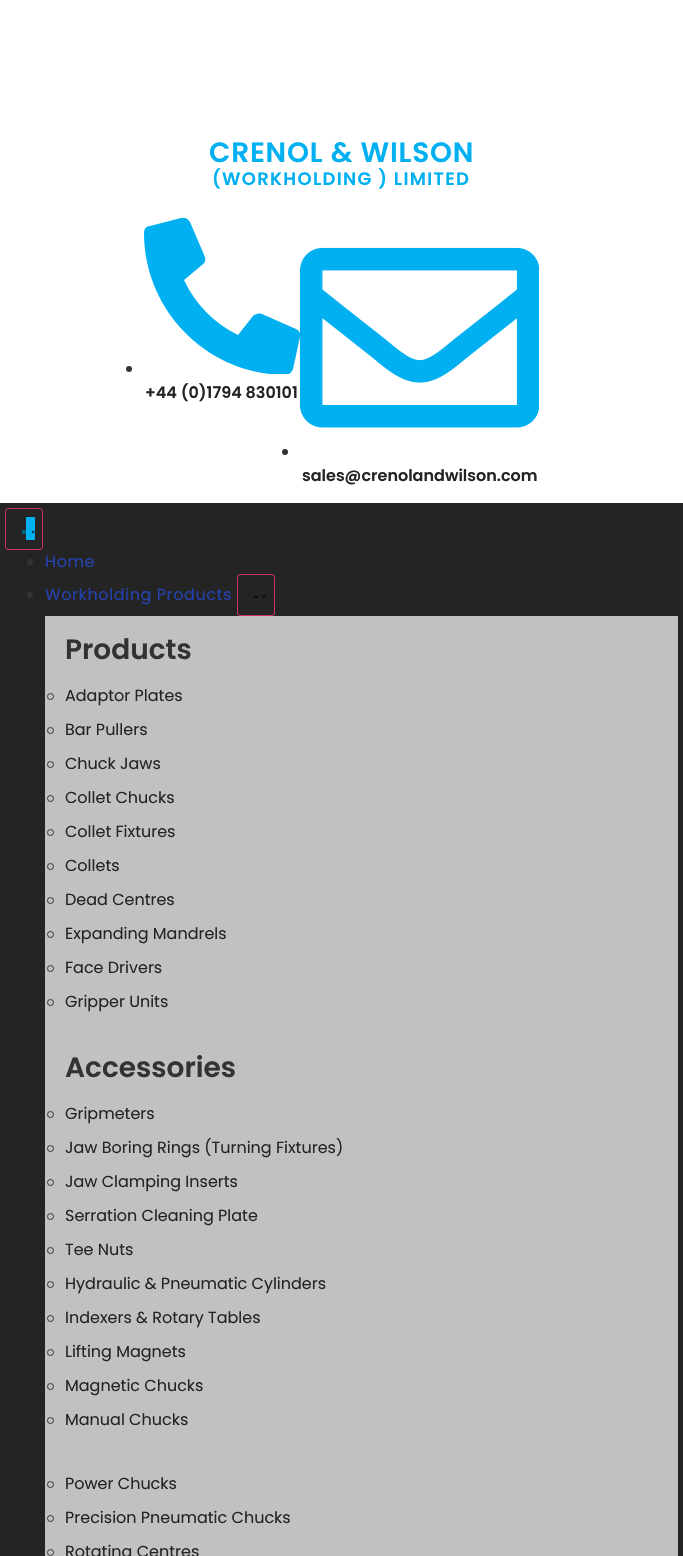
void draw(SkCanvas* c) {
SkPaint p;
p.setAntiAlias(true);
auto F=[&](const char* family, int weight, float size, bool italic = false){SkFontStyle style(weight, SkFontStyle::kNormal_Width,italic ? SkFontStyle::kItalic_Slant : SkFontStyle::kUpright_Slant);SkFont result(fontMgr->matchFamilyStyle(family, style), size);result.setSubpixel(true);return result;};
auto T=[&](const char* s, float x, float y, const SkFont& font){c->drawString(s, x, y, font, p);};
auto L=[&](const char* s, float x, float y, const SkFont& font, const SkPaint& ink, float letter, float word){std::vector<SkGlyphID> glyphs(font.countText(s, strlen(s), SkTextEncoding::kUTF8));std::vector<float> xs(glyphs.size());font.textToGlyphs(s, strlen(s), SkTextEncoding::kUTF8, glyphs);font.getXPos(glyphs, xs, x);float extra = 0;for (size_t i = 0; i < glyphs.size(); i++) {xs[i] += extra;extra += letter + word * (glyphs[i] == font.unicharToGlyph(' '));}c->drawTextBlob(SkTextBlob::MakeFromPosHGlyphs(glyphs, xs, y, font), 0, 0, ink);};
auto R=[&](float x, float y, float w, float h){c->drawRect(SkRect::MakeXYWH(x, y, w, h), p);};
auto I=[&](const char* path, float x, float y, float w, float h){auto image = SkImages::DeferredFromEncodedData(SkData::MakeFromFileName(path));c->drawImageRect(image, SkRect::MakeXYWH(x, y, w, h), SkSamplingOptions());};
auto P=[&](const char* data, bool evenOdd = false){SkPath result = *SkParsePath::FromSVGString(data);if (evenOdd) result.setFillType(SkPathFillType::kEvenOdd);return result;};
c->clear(0xffffffff);
auto f1 = F("Poppins",600,28);
p.setColor(0xff00b0f1);
L("CRENOL & WILSON",209,162,f1,p,.75,0);
auto f2 = F("Poppins",600,18);
L("(WORKHOLDING ) LIMITED",212,185,f2,p,1.3,0);
p.setColor(0xff333333);
c->drawCircle(129,369,3,p);
auto f3 = F("Poppins",600,16);
p.setColor(0xff252425);
T("+44 (0)1794 830101",145,398,f3);
c->save();
c->clipRect(SkRect::MakeXYWH(144,218,156,156));
p.setColor(0xff00b0f1);
c->drawPath(P("M296 329l-34-15c-3-1-7 0-9 2l-15 19c-24-12-43-31-54-55l18-15c3-2 4-5 3-8l-15-35c-2-3-5-5-9-4l-31 8c-4 0-6 3-6 7c0 78 64 142 142 142c3 0 6-3 7-6l7-32c1-3-1-7-4-8z"),p);
c->restore();
I("1.png",300,247,239,181);
p.setColor(0xff333333);
c->drawCircle(285,452,3,p);
p.setColor(0xff252425);
T("sales@crenolandwilson.com",302,481,f3);
R(0,503,683,1053);
p.setStroke(true);
p.setStrokeWidth(1);
p.setColor(0xffcc3366);
c->drawRoundRect(SkRect::MakeXYWH(5.5,508.5,37,41),2.5,2.5,p);
p.setStroke(false);
p.setColor(0xff005d80);
R(22,530,4,4);
p.setColor(0xff00b0f1);
R(26,517,9,23);
I("2.png",31,530,4,4);
p.setColor(0xff333333);
c->drawCircle(30,562,3,p);
auto f4 = F("Poppins",400,16);
p.setColor(0xff2442b0);
L("Home",45,567,f4,p,.6,0);
p.setColor(0xff333333);
c->drawCircle(30,595,3,p);
p.setColor(0xff2442b0);
L("Workholding Products",45,600,f4,p,.6,0);
p.setStroke(true);
p.setColor(0xffcc3366);
c->drawRoundRect(SkRect::MakeXYWH(237.5,574.5,37,41),2.5,2.5,p);
I("3.png",254,595,4,3);
I("4.png",262,595,4,3);
p.setStroke(false);
p.setColor(0xffc1c1c4);
R(45,616,633,940);
p.setColor(0xff333333);
T("Products",65,659,f1);
p.setStroke(true);
c->drawCircle(50.5,696.5,3,p);
p.setStroke(false);
p.setColor(0xff252425);
T("Adaptor Plates",65,701,f4);
p.setStroke(true);
p.setColor(0xff333333);
c->drawCircle(50.5,730.5,3,p);
p.setStroke(false);
p.setColor(0xff252425);
T("Bar Pullers",65,735,f4);
p.setStroke(true);
p.setColor(0xff333333);
c->drawCircle(50.5,764.5,3,p);
p.setStroke(false);
p.setColor(0xff252425);
T("Chuck Jaws",65,769,f4);
p.setStroke(true);
p.setColor(0xff333333);
c->drawCircle(50.5,798.5,3,p);
p.setStroke(false);
p.setColor(0xff252425);
T("Collet Chucks",65,803,f4);
p.setStroke(true);
p.setColor(0xff333333);
c->drawCircle(50.5,832.5,3,p);
p.setStroke(false);
p.setColor(0xff252425);
T("Collet Fixtures",65,837,f4);
p.setStroke(true);
p.setColor(0xff333333);
c->drawCircle(50.5,866.5,3,p);
p.setStroke(false);
p.setColor(0xff252425);
T("Collets",65,871,f4);
p.setStroke(true);
p.setColor(0xff333333);
c->drawCircle(50.5,900.5,3,p);
p.setStroke(false);
p.setColor(0xff252425);
T("Dead Centres",65,905,f4);
p.setStroke(true);
p.setColor(0xff333333);
c->drawCircle(50.5,934.5,3,p);
p.setStroke(false);
p.setColor(0xff252425);
T("Expanding Mandrels",65,939,f4);
p.setStroke(true);
p.setColor(0xff333333);
c->drawCircle(50.5,968.5,3,p);
p.setStroke(false);
p.setColor(0xff252425);
T("Face Drivers",65,973,f4);
p.setStroke(true);
p.setColor(0xff333333);
c->drawCircle(50.5,1002.5,3,p);
p.setStroke(false);
p.setColor(0xff252425);
T("Gripper Units",65,1007,f4);
p.setColor(0xff333333);
T("Accessories",65,1077,f1);
p.setStroke(true);
c->drawCircle(50.5,1114.5,3,p);
p.setStroke(false);
p.setColor(0xff252425);
T("Gripmeters",65,1119,f4);
p.setStroke(true);
p.setColor(0xff333333);
c->drawCircle(50.5,1148.5,3,p);
p.setStroke(false);
p.setColor(0xff252425);
T("Jaw Boring Rings (Turning Fixtures)",65,1153,f4);
p.setStroke(true);
p.setColor(0xff333333);
c->drawCircle(50.5,1182.5,3,p);
p.setStroke(false);
p.setColor(0xff252425);
T("Jaw Clamping Inserts",65,1187,f4);
p.setStroke(true);
p.setColor(0xff333333);
c->drawCircle(50.5,1216.5,3,p);
p.setStroke(false);
p.setColor(0xff252425);
T("Serration Cleaning Plate",65,1221,f4);
p.setStroke(true);
p.setColor(0xff333333);
c->drawCircle(50.5,1250.5,3,p);
p.setStroke(false);
p.setColor(0xff252425);
T("Tee Nuts",65,1255,f4);
p.setStroke(true);
p.setColor(0xff333333);
c->drawCircle(50.5,1284.5,3,p);
p.setStroke(false);
p.setColor(0xff252425);
T("Hydraulic & Pneumatic Cylinders",65,1289,f4);
p.setStroke(true);
p.setColor(0xff333333);
c->drawCircle(50.5,1318.5,3,p);
p.setStroke(false);
p.setColor(0xff252425);
T("Indexers & Rotary Tables",65,1323,f4);
p.setStroke(true);
p.setColor(0xff333333);
c->drawCircle(50.5,1352.5,3,p);
p.setStroke(false);
p.setColor(0xff252425);
T("Lifting Magnets",65,1357,f4);
p.setStroke(true);
p.setColor(0xff333333);
c->drawCircle(50.5,1386.5,3,p);
p.setStroke(false);
p.setColor(0xff252425);
T("Magnetic Chucks",65,1391,f4);
p.setStroke(true);
p.setColor(0xff333333);
c->drawCircle(50.5,1420.5,3,p);
p.setStroke(false);
p.setColor(0xff252425);
T("Manual Chucks",65,1425,f4);
p.setStroke(true);
p.setColor(0xff333333);
c->drawCircle(50.5,1484.5,3,p);
p.setStroke(false);
p.setColor(0xff252425);
T("Power Chucks",65,1489,f4);
p.setStroke(true);
p.setColor(0xff333333);
c->drawCircle(50.5,1518.5,3,p);
p.setStroke(false);
p.setColor(0xff252425);
T("Precision Pneumatic Chucks",65,1523,f4);
p.setStroke(true);
p.setColor(0xff333333);
c->drawCircle(50.5,1552.5,3,p);
p.setStroke(false);
p.setColor(0xff252425);
T("Rotating Centres",65,1557,f4);
}
